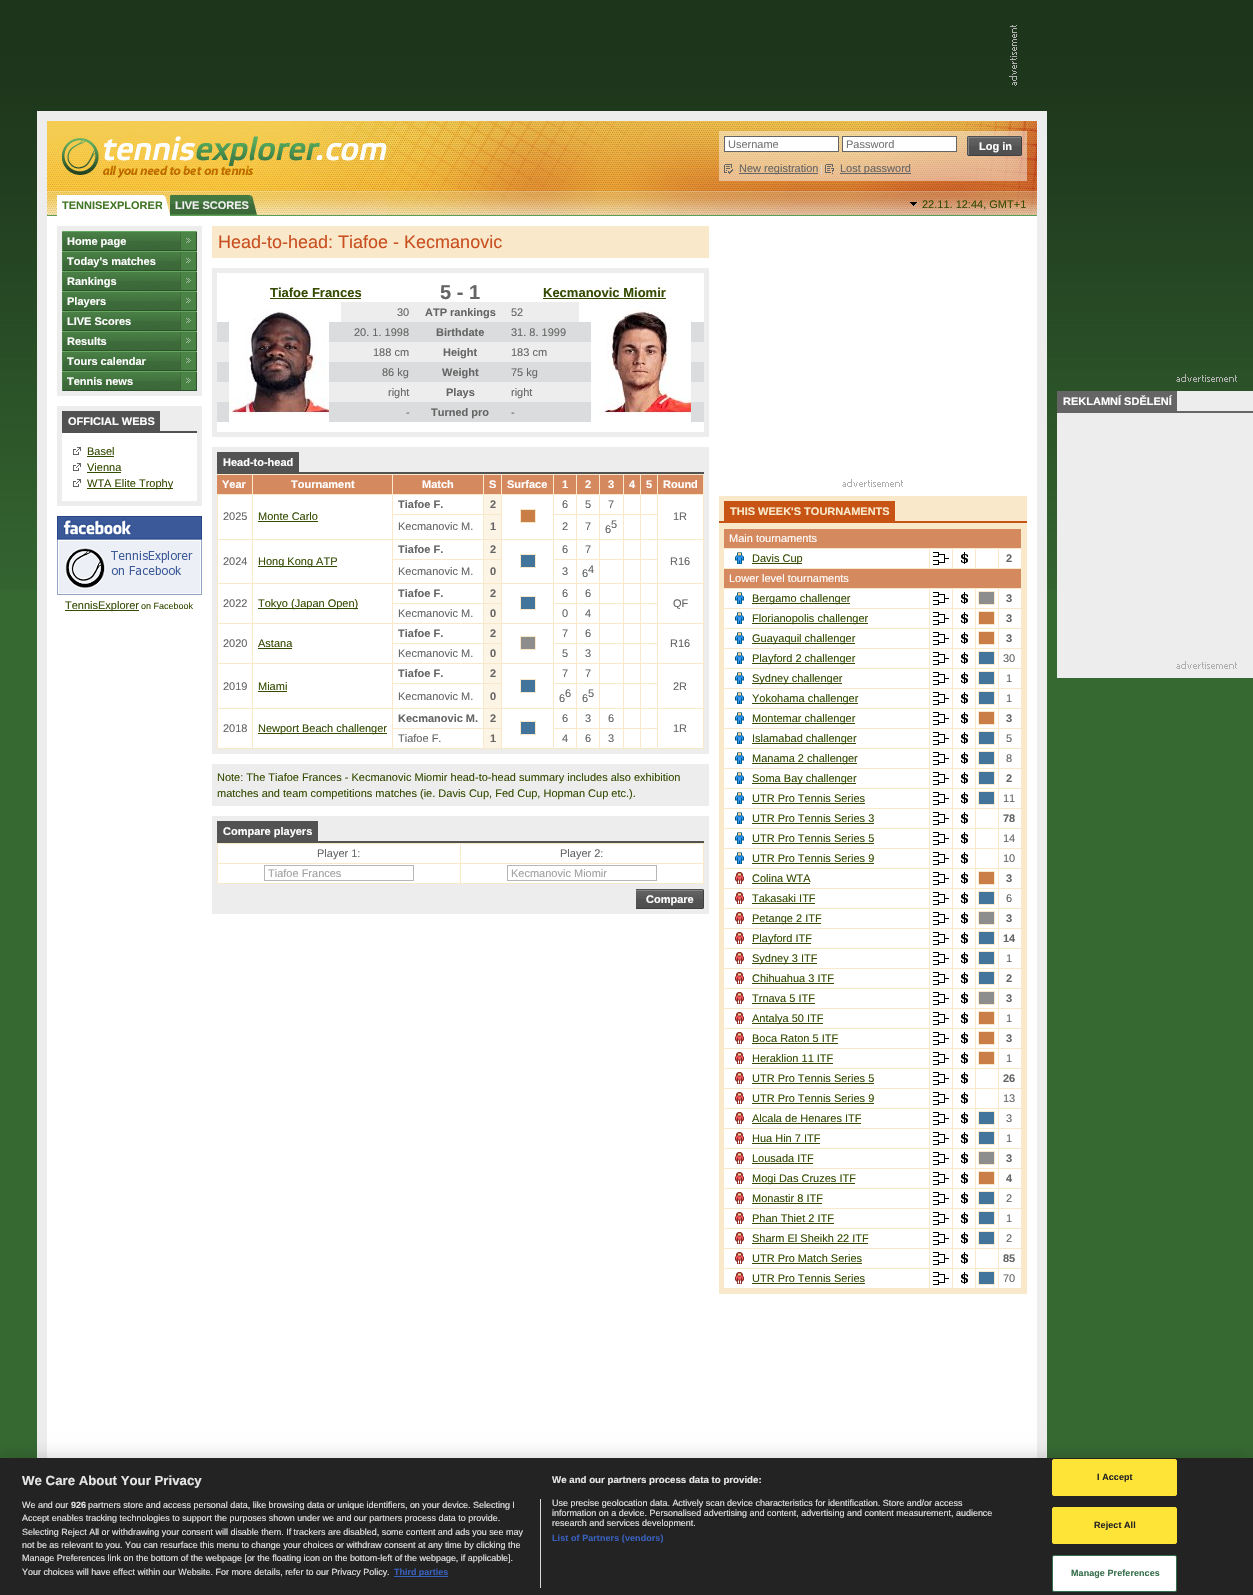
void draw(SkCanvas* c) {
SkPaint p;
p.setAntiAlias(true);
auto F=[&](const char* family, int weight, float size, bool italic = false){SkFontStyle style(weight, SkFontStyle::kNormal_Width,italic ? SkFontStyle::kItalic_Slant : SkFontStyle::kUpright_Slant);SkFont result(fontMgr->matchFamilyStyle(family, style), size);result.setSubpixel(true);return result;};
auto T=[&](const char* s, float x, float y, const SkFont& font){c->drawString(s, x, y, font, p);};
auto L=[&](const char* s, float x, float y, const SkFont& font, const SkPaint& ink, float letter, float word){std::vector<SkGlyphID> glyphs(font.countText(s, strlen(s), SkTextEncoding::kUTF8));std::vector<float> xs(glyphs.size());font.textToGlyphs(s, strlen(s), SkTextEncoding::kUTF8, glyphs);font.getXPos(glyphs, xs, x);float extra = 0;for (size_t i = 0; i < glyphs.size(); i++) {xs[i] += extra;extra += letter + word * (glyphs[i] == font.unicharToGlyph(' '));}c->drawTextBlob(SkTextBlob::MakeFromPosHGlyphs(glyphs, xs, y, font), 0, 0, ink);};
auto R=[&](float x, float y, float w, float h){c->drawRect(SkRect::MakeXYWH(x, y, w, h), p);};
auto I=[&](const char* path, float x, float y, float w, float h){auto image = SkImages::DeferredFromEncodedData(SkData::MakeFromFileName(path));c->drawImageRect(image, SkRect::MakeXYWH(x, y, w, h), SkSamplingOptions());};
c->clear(0xff366932);
I("1.png",0,0,1253,589);
I("2.png",1009,25,8,61);
p.setColor(0xffededed);
R(37,111,1010,1347);
p.setColor(0xffffffff);
R(47,216,990,1242);
p.setColor(0xff5ca056);
R(47,215,990,1);
I("3.png",47,121,990,94);
I("4.png",719,131,308,50);
p.setColor(0xffffffff);
c->drawRect(SkRect::MakeXYWH(724.5,136.5,114,15),p);
p.setStroke(true);
p.setStrokeWidth(1);
p.setColor(0xff656565);
c->drawRect(SkRect::MakeXYWH(724.5,136.5,114,15),p);
auto f1 = F("Liberation Sans",400,11);
p.setStroke(false);
p.setColor(0xff757575);
T("Username",728,148,f1);
p.setColor(0xffffffff);
c->drawRect(SkRect::MakeXYWH(842.5,136.5,114,15),p);
p.setStroke(true);
p.setColor(0xff656565);
c->drawRect(SkRect::MakeXYWH(842.5,136.5,114,15),p);
p.setStroke(false);
p.setColor(0xff757575);
T("Password",846,148,f1);
I("5.png",967,136,2,20);
I("6.png",969,136,53,20);
auto f2 = F("Liberation Sans",700,11);
p.setColor(0xffffffff);
T("Log in",979,150,f2);
I("7.png",724,164,9,10);
p.setColor(0xff656565);
R(739,173,79,1);
T("New registration",739,172,f1);
p.setColor(0xffdadada);
T("|",820,172,f1);
I("8.png",825,164,9,10);
p.setColor(0xff656565);
R(840,173,71,1);
T("Lost password",840,172,f1);
p.setColor(0xffffffff);
R(57,195,105,21);
p.setColor(0xff437726);
T("TENNISEXPLORER",62,209,f2);
I("9.png",162,195,8,20);
p.setColor(0xffffffff);
R(162,215,8,1);
I("10.png",170,195,79,20);
p.setColor(0xff75934e);
R(170,195,1,1);
p.setColor(0xffeeeeee);
T("LIVE SCORES",175,209,f2);
I("11.png",249,195,8,20);
I("12.png",910,202,8,4);
p.setColor(0xff364c03);
T("22.11. 12:44, GMT+1",922,208,f1);
p.setColor(0xffededed);
R(57,226,145,170);
I("13.png",62,231,135,20);
p.setColor(0xffffffff);
T("Home page",67,245,f2);
I("13.png",62,251,135,20);
T("Today's matches",67,265,f2);
I("13.png",62,271,135,20);
T("Rankings",67,285,f2);
I("13.png",62,291,135,20);
T("Players",67,305,f2);
I("13.png",62,311,135,20);
T("LIVE Scores",67,325,f2);
I("13.png",62,331,135,20);
T("Results",67,345,f2);
I("13.png",62,351,135,20);
T("Tours calendar",67,365,f2);
I("13.png",62,371,135,20);
T("Tennis news",67,385,f2);
p.setColor(0xffededed);
R(57,406,145,100);
p.setColor(0xff525252);
R(62,431,135,2);
R(62,411,98,20);
p.setColor(0xffffffff);
T("OFFICIAL WEBS",68,425,f2);
R(62,433,135,68);
I("14.png",73,447,8,8);
p.setColor(0xff364c03);
T("Basel",87,455,f1);
R(87,456,27,1);
I("14.png",73,463,8,8);
T("Vienna",87,471,f1);
R(87,472,34,1);
I("14.png",73,479,8,8);
R(87,488,86,1);
T("WTA Elite Trophy",87,487,f1);
I("15.png",57,516,145,79);
R(65,610,74,1);
T("TennisExplorer",65,609,f1);
auto f3 = F("Liberation Sans",400,9);
T("on Facebook",141,609,f3);
p.setColor(0xfff9e8ca);
R(212,226,497,32);
auto f4 = F("Liberation Sans",400,18);
p.setColor(0xffc94f20);
T("Head-to-head: Tiafoe - Kecmanovic",218,248,f4);
p.setColor(0xffededed);
R(212,268,497,169);
p.setColor(0xffffffff);
R(217,273,487,29);
auto f5 = F("Liberation Sans",700,13);
p.setColor(0xff364c03);
T("Tiafoe Frances",270,297,f5);
R(270,298,91,1);
auto f6 = F("Liberation Sans",700,20);
p.setColor(0xff656565);
T("5 - 1",440,299,f6);
p.setColor(0xff364c03);
T("Kecmanovic Miomir",543,297,f5);
R(543,298,123,1);
p.setColor(0xffffffff);
R(217,302,124,20);
p.setColor(0xffdbdcdd);
R(217,322,487,20);
R(217,362,487,20);
R(217,402,487,20);
I("16.png",229,310,100,112);
p.setColor(0xff656565);
T("30",397,316,f1);
T("ATP rankings",425,316,f2);
T("52",511,316,f1);
p.setColor(0xffffffff);
R(579,302,125,20);
I("17.png",591,302,100,120);
p.setColor(0xff656565);
T("20. 1. 1998",354,336,f1);
T("Birthdate",436,336,f2);
T("31. 8. 1999",511,336,f1);
T("188 cm",373,356,f1);
T("Height",443,356,f2);
T("183 cm",511,356,f1);
T("86 kg",382,376,f1);
T("Weight",442,376,f2);
T("75 kg",511,376,f1);
T("right",388,396,f1);
T("Plays",446,396,f2);
T("right",511,396,f1);
T("-",406,416,f1);
T("Turned pro",431,416,f2);
T("-",511,416,f1);
p.setColor(0xffffffff);
R(217,422,487,10);
p.setColor(0xffededed);
R(212,447,497,307);
p.setColor(0xff525252);
R(217,472,487,2);
R(217,452,82,1);
R(298,452,1,20);
R(217,452,1,20);
R(218,453,80,19);
p.setColor(0xffffffff);
T("Head-to-head",223,466,f2);
R(218,495,485,253);
p.setColor(0xfff9e8ca);
R(217,748,487,1);
p.setColor(0xffd5895f);
R(217,475,35,19);
p.setColor(0xfff9e8ca);
R(217,474,487,1);
R(252,474,1,20);
p.setColor(0xffffffff);
T("Year",222,488,f2);
p.setColor(0xffd5895f);
R(253,475,139,19);
p.setColor(0xfff9e8ca);
R(392,474,1,20);
p.setColor(0xffffffff);
T("Tournament",291,488,f2);
p.setColor(0xffd5895f);
R(393,475,90,19);
p.setColor(0xfff9e8ca);
R(483,474,1,20);
p.setColor(0xffffffff);
T("Match",422,488,f2);
p.setColor(0xffd5895f);
R(484,475,17,19);
p.setColor(0xfff9e8ca);
R(501,474,1,20);
p.setColor(0xffffffff);
T("S",489,488,f2);
p.setColor(0xffd5895f);
R(502,475,51,19);
p.setColor(0xfff9e8ca);
R(553,474,1,20);
p.setColor(0xffffffff);
T("Surface",507,488,f2);
p.setColor(0xffd5895f);
R(554,475,22,19);
p.setColor(0xfff9e8ca);
R(576,474,1,20);
p.setColor(0xffffffff);
T("1",562,488,f2);
p.setColor(0xffd5895f);
R(577,475,22,19);
p.setColor(0xfff9e8ca);
R(599,474,1,20);
p.setColor(0xffffffff);
T("2",585,488,f2);
p.setColor(0xffd5895f);
R(600,475,23,19);
p.setColor(0xfff9e8ca);
R(623,474,1,20);
p.setColor(0xffffffff);
T("3",608,488,f2);
p.setColor(0xffd5895f);
R(624,475,16,19);
p.setColor(0xfff9e8ca);
R(640,474,1,20);
p.setColor(0xffffffff);
T("4",629,488,f2);
p.setColor(0xffd5895f);
R(641,475,16,19);
p.setColor(0xfff9e8ca);
R(657,474,1,20);
p.setColor(0xffffffff);
T("5",646,488,f2);
p.setColor(0xffd5895f);
R(658,475,45,19);
p.setColor(0xfff9e8ca);
R(703,474,1,20);
p.setColor(0xffffffff);
T("Round",663,488,f2);
p.setColor(0xfff9e8ca);
R(217,494,487,1);
R(483,494,1,20);
p.setColor(0xff656565);
T("Tiafoe F.",398,508,f2);
p.setColor(0xfffcf4e5);
R(484,495,17,19);
p.setColor(0xfff9e8ca);
R(501,494,1,20);
p.setColor(0xff656565);
T("2",490,508,f2);
p.setColor(0xfff9e8ca);
R(553,494,1,45);
p.setColor(0xffc97d47);
c->drawRect(SkRect::MakeXYWH(520.5,509.5,15,13),p);
p.setStroke(true);
p.setColor(0xfff9e8ca);
c->drawRect(SkRect::MakeXYWH(520.5,509.5,15,13),p);
p.setStroke(false);
R(576,494,1,20);
p.setColor(0xff656565);
T("6",562,508,f1);
p.setColor(0xfff9e8ca);
R(599,494,1,20);
p.setColor(0xff656565);
T("5",585,508,f1);
p.setColor(0xfff9e8ca);
R(623,494,1,20);
p.setColor(0xff656565);
T("7",608,508,f1);
p.setColor(0xfff9e8ca);
R(640,494,1,20);
R(657,494,1,20);
R(252,494,1,45);
R(217,494,1,45);
p.setColor(0xff656565);
T("2025",223,520,f1);
p.setColor(0xfff9e8ca);
R(392,494,1,45);
p.setColor(0xff364c03);
T("Monte Carlo",258,520,f1);
R(258,521,60,1);
p.setColor(0xfff9e8ca);
R(703,494,1,45);
p.setColor(0xff656565);
T("1R",673,520,f1);
p.setColor(0xfff9e8ca);
R(393,514,109,1);
R(483,514,1,25);
p.setColor(0xff656565);
T("Kecmanovic M.",398,530,f1);
p.setColor(0xfffcf4e5);
R(484,515,17,24);
p.setColor(0xfff9e8ca);
R(501,514,1,25);
p.setColor(0xff656565);
T("1",490,530,f2);
p.setColor(0xfff9e8ca);
R(554,514,104,1);
R(576,514,1,25);
p.setColor(0xff656565);
T("2",562,530,f1);
p.setColor(0xfff9e8ca);
R(599,514,1,25);
p.setColor(0xff656565);
T("7",585,530,f1);
p.setColor(0xfff9e8ca);
R(623,514,1,25);
p.setColor(0xff656565);
T("6",605,533,f1);
T("5",611,528,f1);
p.setColor(0xfff9e8ca);
R(640,514,1,25);
R(657,514,1,25);
R(217,539,487,1);
R(483,539,1,20);
p.setColor(0xff656565);
T("Tiafoe F.",398,553,f2);
p.setColor(0xfffcf4e5);
R(484,540,17,19);
p.setColor(0xfff9e8ca);
R(501,539,1,20);
p.setColor(0xff656565);
T("2",490,553,f2);
p.setColor(0xfff9e8ca);
R(553,539,1,44);
p.setColor(0xff43749b);
c->drawRect(SkRect::MakeXYWH(520.5,554.5,15,13),p);
p.setStroke(true);
p.setColor(0xfff9e8ca);
c->drawRect(SkRect::MakeXYWH(520.5,554.5,15,13),p);
p.setStroke(false);
R(576,539,1,20);
p.setColor(0xff656565);
T("6",562,553,f1);
p.setColor(0xfff9e8ca);
R(599,539,1,20);
p.setColor(0xff656565);
T("7",585,553,f1);
p.setColor(0xfff9e8ca);
R(623,539,1,20);
R(640,539,1,20);
R(657,539,1,20);
R(252,539,1,44);
R(217,539,1,44);
p.setColor(0xff656565);
T("2024",223,565,f1);
p.setColor(0xfff9e8ca);
R(392,539,1,44);
p.setColor(0xff364c03);
R(258,566,79,1);
T("Hong Kong ATP",258,565,f1);
p.setColor(0xfff9e8ca);
R(703,539,1,44);
p.setColor(0xff656565);
T("R16",670,565,f1);
p.setColor(0xfff9e8ca);
R(393,559,109,1);
R(483,559,1,24);
p.setColor(0xff656565);
T("Kecmanovic M.",398,575,f1);
p.setColor(0xfffcf4e5);
R(484,560,17,23);
p.setColor(0xfff9e8ca);
R(501,559,1,24);
p.setColor(0xff656565);
T("0",490,575,f2);
p.setColor(0xfff9e8ca);
R(554,559,104,1);
R(576,559,1,24);
p.setColor(0xff656565);
T("3",562,575,f1);
p.setColor(0xfff9e8ca);
R(599,559,1,24);
p.setColor(0xff656565);
T("6",582,577,f1);
T("4",588,573,f1);
p.setColor(0xfff9e8ca);
R(623,559,1,24);
R(640,559,1,24);
R(657,559,1,24);
R(217,583,487,1);
R(483,583,1,20);
p.setColor(0xff656565);
T("Tiafoe F.",398,597,f2);
p.setColor(0xfffcf4e5);
R(484,584,17,19);
p.setColor(0xfff9e8ca);
R(501,583,1,20);
p.setColor(0xff656565);
T("2",490,597,f2);
p.setColor(0xfff9e8ca);
R(553,583,1,40);
p.setColor(0xff43749b);
c->drawRect(SkRect::MakeXYWH(520.5,596.5,15,13),p);
p.setStroke(true);
p.setColor(0xfff9e8ca);
c->drawRect(SkRect::MakeXYWH(520.5,596.5,15,13),p);
p.setStroke(false);
R(576,583,1,20);
p.setColor(0xff656565);
T("6",562,597,f1);
p.setColor(0xfff9e8ca);
R(599,583,1,20);
p.setColor(0xff656565);
T("6",585,597,f1);
p.setColor(0xfff9e8ca);
R(623,583,1,20);
R(640,583,1,20);
R(657,583,1,20);
R(252,583,1,40);
R(217,583,1,40);
p.setColor(0xff656565);
T("2022",223,607,f1);
p.setColor(0xfff9e8ca);
R(392,583,1,40);
p.setColor(0xff364c03);
R(258,608,100,1);
T("Tokyo (Japan Open)",258,607,f1);
p.setColor(0xfff9e8ca);
R(703,583,1,40);
p.setColor(0xff656565);
T("QF",673,607,f1);
p.setColor(0xfff9e8ca);
R(393,603,109,1);
R(483,603,1,20);
p.setColor(0xff656565);
T("Kecmanovic M.",398,617,f1);
p.setColor(0xfffcf4e5);
R(484,604,17,19);
p.setColor(0xfff9e8ca);
R(501,603,1,20);
p.setColor(0xff656565);
T("0",490,617,f2);
p.setColor(0xfff9e8ca);
R(554,603,104,1);
R(576,603,1,20);
p.setColor(0xff656565);
T("0",562,617,f1);
p.setColor(0xfff9e8ca);
R(599,603,1,20);
p.setColor(0xff656565);
T("4",585,617,f1);
p.setColor(0xfff9e8ca);
R(623,603,1,20);
R(640,603,1,20);
R(657,603,1,20);
R(217,623,487,1);
R(483,623,1,20);
p.setColor(0xff656565);
T("Tiafoe F.",398,637,f2);
p.setColor(0xfffcf4e5);
R(484,624,17,19);
p.setColor(0xfff9e8ca);
R(501,623,1,20);
p.setColor(0xff656565);
T("2",490,637,f2);
p.setColor(0xfff9e8ca);
R(553,623,1,40);
p.setColor(0xff8d8d8d);
c->drawRect(SkRect::MakeXYWH(520.5,636.5,15,13),p);
p.setStroke(true);
p.setColor(0xfff9e8ca);
c->drawRect(SkRect::MakeXYWH(520.5,636.5,15,13),p);
p.setStroke(false);
R(576,623,1,20);
p.setColor(0xff656565);
T("7",562,637,f1);
p.setColor(0xfff9e8ca);
R(599,623,1,20);
p.setColor(0xff656565);
T("6",585,637,f1);
p.setColor(0xfff9e8ca);
R(623,623,1,20);
R(640,623,1,20);
R(657,623,1,20);
R(252,623,1,40);
R(217,623,1,40);
p.setColor(0xff656565);
T("2020",223,647,f1);
p.setColor(0xfff9e8ca);
R(392,623,1,40);
p.setColor(0xff364c03);
T("Astana",258,647,f1);
R(258,648,34,1);
p.setColor(0xfff9e8ca);
R(703,623,1,40);
p.setColor(0xff656565);
T("R16",670,647,f1);
p.setColor(0xfff9e8ca);
R(393,643,109,1);
R(483,643,1,20);
p.setColor(0xff656565);
T("Kecmanovic M.",398,657,f1);
p.setColor(0xfffcf4e5);
R(484,644,17,19);
p.setColor(0xfff9e8ca);
R(501,643,1,20);
p.setColor(0xff656565);
T("0",490,657,f2);
p.setColor(0xfff9e8ca);
R(554,643,104,1);
R(576,643,1,20);
p.setColor(0xff656565);
T("5",562,657,f1);
p.setColor(0xfff9e8ca);
R(599,643,1,20);
p.setColor(0xff656565);
T("3",585,657,f1);
p.setColor(0xfff9e8ca);
R(623,643,1,20);
R(640,643,1,20);
R(657,643,1,20);
R(217,663,487,1);
R(483,663,1,20);
p.setColor(0xff656565);
T("Tiafoe F.",398,677,f2);
p.setColor(0xfffcf4e5);
R(484,664,17,19);
p.setColor(0xfff9e8ca);
R(501,663,1,20);
p.setColor(0xff656565);
T("2",490,677,f2);
p.setColor(0xfff9e8ca);
R(553,663,1,45);
p.setColor(0xff43749b);
c->drawRect(SkRect::MakeXYWH(520.5,679.5,15,13),p);
p.setStroke(true);
p.setColor(0xfff9e8ca);
c->drawRect(SkRect::MakeXYWH(520.5,679.5,15,13),p);
p.setStroke(false);
R(576,663,1,20);
p.setColor(0xff656565);
T("7",562,677,f1);
p.setColor(0xfff9e8ca);
R(599,663,1,20);
p.setColor(0xff656565);
T("7",585,677,f1);
p.setColor(0xfff9e8ca);
R(623,663,1,20);
R(640,663,1,20);
R(657,663,1,20);
R(252,663,1,45);
R(217,663,1,45);
p.setColor(0xff656565);
T("2019",223,690,f1);
p.setColor(0xfff9e8ca);
R(392,663,1,45);
p.setColor(0xff364c03);
T("Miami",258,690,f1);
R(258,691,29,1);
p.setColor(0xfff9e8ca);
R(703,663,1,45);
p.setColor(0xff656565);
T("2R",673,690,f1);
p.setColor(0xfff9e8ca);
R(393,683,109,1);
R(483,683,1,25);
p.setColor(0xff656565);
T("Kecmanovic M.",398,700,f1);
p.setColor(0xfffcf4e5);
R(484,684,17,24);
p.setColor(0xfff9e8ca);
R(501,683,1,25);
p.setColor(0xff656565);
T("0",490,700,f2);
p.setColor(0xfff9e8ca);
R(554,683,104,1);
R(576,683,1,25);
p.setColor(0xff656565);
T("6",559,702,f1);
T("6",565,697,f1);
p.setColor(0xfff9e8ca);
R(599,683,1,25);
p.setColor(0xff656565);
T("6",582,702,f1);
T("5",588,697,f1);
p.setColor(0xfff9e8ca);
R(623,683,1,25);
R(640,683,1,25);
R(657,683,1,25);
R(217,708,487,1);
R(483,708,1,20);
p.setColor(0xff656565);
T("Kecmanovic M.",398,722,f2);
p.setColor(0xfffcf4e5);
R(484,709,17,19);
p.setColor(0xfff9e8ca);
R(501,708,1,20);
p.setColor(0xff656565);
T("2",490,722,f2);
p.setColor(0xfff9e8ca);
R(553,708,1,40);
p.setColor(0xff43749b);
c->drawRect(SkRect::MakeXYWH(520.5,721.5,15,13),p);
p.setStroke(true);
p.setColor(0xfff9e8ca);
c->drawRect(SkRect::MakeXYWH(520.5,721.5,15,13),p);
p.setStroke(false);
R(576,708,1,20);
p.setColor(0xff656565);
T("6",562,722,f1);
p.setColor(0xfff9e8ca);
R(599,708,1,20);
p.setColor(0xff656565);
T("3",585,722,f1);
p.setColor(0xfff9e8ca);
R(623,708,1,20);
p.setColor(0xff656565);
T("6",608,722,f1);
p.setColor(0xfff9e8ca);
R(640,708,1,20);
R(657,708,1,20);
R(252,708,1,40);
R(217,708,1,40);
p.setColor(0xff656565);
T("2018",223,732,f1);
p.setColor(0xfff9e8ca);
R(392,708,1,40);
p.setColor(0xff364c03);
R(258,733,129,1);
T("Newport Beach challenger",258,732,f1);
p.setColor(0xfff9e8ca);
R(703,708,1,40);
p.setColor(0xff656565);
T("1R",673,732,f1);
p.setColor(0xfff9e8ca);
R(393,728,109,1);
R(483,728,1,20);
p.setColor(0xff656565);
T("Tiafoe F.",398,742,f1);
p.setColor(0xfffcf4e5);
R(484,729,17,19);
p.setColor(0xfff9e8ca);
R(501,728,1,20);
p.setColor(0xff656565);
T("1",490,742,f2);
p.setColor(0xfff9e8ca);
R(554,728,104,1);
R(576,728,1,20);
p.setColor(0xff656565);
T("4",562,742,f1);
p.setColor(0xfff9e8ca);
R(599,728,1,20);
p.setColor(0xff656565);
T("6",585,742,f1);
p.setColor(0xfff9e8ca);
R(623,728,1,20);
p.setColor(0xff656565);
T("3",608,742,f1);
p.setColor(0xfff9e8ca);
R(640,728,1,20);
R(657,728,1,20);
p.setColor(0xffededed);
R(212,764,497,42);
p.setColor(0xff364c03);
T("Note: The Tiafoe Frances - Kecmanovic Miomir head-to-head summary includes also exhibition",217,781,f1);
T("matches and team competitions matches (ie. Davis Cup, Fed Cup, Hopman Cup etc.).",217,797,f1);
p.setColor(0xffededed);
R(212,816,497,98);
p.setColor(0xff525252);
R(217,841,487,2);
R(217,821,101,1);
R(317,821,1,20);
R(217,821,1,20);
R(218,822,99,19);
p.setColor(0xffffffff);
T("Compare players",223,835,f2);
R(218,844,485,39);
p.setColor(0xfff9e8ca);
R(217,883,487,1);
R(217,843,487,1);
R(460,843,1,20);
R(217,843,1,20);
p.setColor(0xff656565);
T("Player 1:",317,857,f1);
p.setColor(0xfff9e8ca);
R(703,843,1,20);
p.setColor(0xff656565);
T("Player 2:",560,857,f1);
p.setColor(0xfff9e8ca);
R(217,863,487,1);
R(460,863,1,20);
R(217,863,1,20);
p.setStroke(true);
p.setColor(0xffb6b6b6);
c->drawRect(SkRect::MakeXYWH(264.5,865.5,149,15),p);
p.setStroke(false);
p.setColor(0xffa0a0a0);
T("Tiafoe Frances",268,877,f1);
p.setColor(0xfff9e8ca);
R(703,863,1,20);
p.setStroke(true);
p.setColor(0xffb6b6b6);
c->drawRect(SkRect::MakeXYWH(507.5,865.5,149,15),p);
p.setStroke(false);
p.setColor(0xffa0a0a0);
T("Kecmanovic Miomir",511,877,f1);
I("18.png",636,889,68,20);
p.setColor(0xffffffff);
T("Compare",646,903,f2);
I("19.png",842,479,61,8);
p.setColor(0xfff9e8ca);
R(719,496,308,798);
p.setColor(0xffc75414);
R(719,521,308,2);
R(724,501,171,20);
p.setColor(0xfff9e8ca);
T("THIS WEEK'S TOURNAMENTS",730,515,f2);
p.setColor(0xffffffff);
R(724,549,297,739);
p.setColor(0xffd5895f);
R(724,529,297,19);
p.setColor(0xffffffff);
T("Main tournaments",729,542,f1);
p.setColor(0xfff9e8ca);
R(929,548,1,20);
I("20.png",735,552,9,12);
p.setColor(0xff364c03);
R(752,563,50,1);
T("Davis Cup",752,562,f1);
p.setColor(0xfff9e8ca);
R(952,548,1,20);
I("21.png",933,552,16,13);
R(975,548,1,20);
I("22.png",961,552,7,12);
R(998,548,1,20);
p.setColor(0xff656565);
T("2",1006,562,f2);
p.setColor(0xffd5895f);
R(724,569,297,19);
p.setColor(0xfff9e8ca);
R(724,568,298,1);
p.setColor(0xffffffff);
T("Lower level tournaments",729,582,f1);
p.setColor(0xfff9e8ca);
R(724,588,298,1);
R(929,588,1,20);
I("20.png",735,592,9,12);
p.setColor(0xff364c03);
R(752,603,98,1);
T("Bergamo challenger",752,602,f1);
p.setColor(0xfff9e8ca);
R(952,588,1,20);
I("21.png",933,592,16,13);
R(975,588,1,20);
I("22.png",961,592,7,12);
R(998,588,1,20);
p.setColor(0xff8d8d8d);
c->drawRect(SkRect::MakeXYWH(978.5,591.5,16,13),p);
p.setStroke(true);
p.setColor(0xfff9e8ca);
c->drawRect(SkRect::MakeXYWH(978.5,591.5,16,13),p);
p.setStroke(false);
p.setColor(0xff656565);
T("3",1006,602,f2);
p.setColor(0xfff9e8ca);
R(724,608,298,1);
R(929,608,1,20);
I("20.png",735,612,9,12);
p.setColor(0xff364c03);
R(752,623,116,1);
T("Florianopolis challenger",752,622,f1);
p.setColor(0xfff9e8ca);
R(952,608,1,20);
I("21.png",933,612,16,13);
R(975,608,1,20);
I("22.png",961,612,7,12);
R(998,608,1,20);
p.setColor(0xffc97d47);
c->drawRect(SkRect::MakeXYWH(978.5,611.5,16,13),p);
p.setStroke(true);
p.setColor(0xfff9e8ca);
c->drawRect(SkRect::MakeXYWH(978.5,611.5,16,13),p);
p.setStroke(false);
p.setColor(0xff656565);
T("3",1006,622,f2);
p.setColor(0xfff9e8ca);
R(724,628,298,1);
R(929,628,1,20);
I("20.png",735,632,9,12);
p.setColor(0xff364c03);
R(752,643,103,1);
T("Guayaquil challenger",752,642,f1);
p.setColor(0xfff9e8ca);
R(952,628,1,20);
I("21.png",933,632,16,13);
R(975,628,1,20);
I("22.png",961,632,7,12);
R(998,628,1,20);
p.setColor(0xffc97d47);
c->drawRect(SkRect::MakeXYWH(978.5,631.5,16,13),p);
p.setStroke(true);
p.setColor(0xfff9e8ca);
c->drawRect(SkRect::MakeXYWH(978.5,631.5,16,13),p);
p.setStroke(false);
p.setColor(0xff656565);
T("3",1006,642,f2);
p.setColor(0xfff9e8ca);
R(724,648,298,1);
R(929,648,1,20);
I("20.png",735,652,9,12);
p.setColor(0xff364c03);
R(752,663,103,1);
T("Playford 2 challenger",752,662,f1);
p.setColor(0xfff9e8ca);
R(952,648,1,20);
I("21.png",933,652,16,13);
R(975,648,1,20);
I("22.png",961,652,7,12);
R(998,648,1,20);
p.setColor(0xff43749b);
c->drawRect(SkRect::MakeXYWH(978.5,651.5,16,13),p);
p.setStroke(true);
p.setColor(0xfff9e8ca);
c->drawRect(SkRect::MakeXYWH(978.5,651.5,16,13),p);
p.setStroke(false);
p.setColor(0xff656565);
T("30",1003,662,f1);
p.setColor(0xfff9e8ca);
R(724,668,298,1);
R(929,668,1,20);
I("20.png",735,672,9,12);
p.setColor(0xff364c03);
R(752,683,90,1);
T("Sydney challenger",752,682,f1);
p.setColor(0xfff9e8ca);
R(952,668,1,20);
I("21.png",933,672,16,13);
R(975,668,1,20);
I("22.png",961,672,7,12);
R(998,668,1,20);
p.setColor(0xff43749b);
c->drawRect(SkRect::MakeXYWH(978.5,671.5,16,13),p);
p.setStroke(true);
p.setColor(0xfff9e8ca);
c->drawRect(SkRect::MakeXYWH(978.5,671.5,16,13),p);
p.setStroke(false);
p.setColor(0xff656565);
T("1",1006,682,f1);
p.setColor(0xfff9e8ca);
R(724,688,298,1);
R(929,688,1,20);
I("20.png",735,692,9,12);
p.setColor(0xff364c03);
R(752,703,106,1);
T("Yokohama challenger",752,702,f1);
p.setColor(0xfff9e8ca);
R(952,688,1,20);
I("21.png",933,692,16,13);
R(975,688,1,20);
I("22.png",961,692,7,12);
R(998,688,1,20);
p.setColor(0xff43749b);
c->drawRect(SkRect::MakeXYWH(978.5,691.5,16,13),p);
p.setStroke(true);
p.setColor(0xfff9e8ca);
c->drawRect(SkRect::MakeXYWH(978.5,691.5,16,13),p);
p.setStroke(false);
p.setColor(0xff656565);
T("1",1006,702,f1);
p.setColor(0xfff9e8ca);
R(724,708,298,1);
R(929,708,1,20);
I("20.png",735,712,9,12);
p.setColor(0xff364c03);
R(752,723,103,1);
T("Montemar challenger",752,722,f1);
p.setColor(0xfff9e8ca);
R(952,708,1,20);
I("21.png",933,712,16,13);
R(975,708,1,20);
I("22.png",961,712,7,12);
R(998,708,1,20);
p.setColor(0xffc97d47);
c->drawRect(SkRect::MakeXYWH(978.5,711.5,16,13),p);
p.setStroke(true);
p.setColor(0xfff9e8ca);
c->drawRect(SkRect::MakeXYWH(978.5,711.5,16,13),p);
p.setStroke(false);
p.setColor(0xff656565);
T("3",1006,722,f2);
p.setColor(0xfff9e8ca);
R(724,728,298,1);
R(929,728,1,20);
I("20.png",735,732,9,12);
p.setColor(0xff364c03);
R(752,743,104,1);
T("Islamabad challenger",752,742,f1);
p.setColor(0xfff9e8ca);
R(952,728,1,20);
I("21.png",933,732,16,13);
R(975,728,1,20);
I("22.png",961,732,7,12);
R(998,728,1,20);
p.setColor(0xff43749b);
c->drawRect(SkRect::MakeXYWH(978.5,731.5,16,13),p);
p.setStroke(true);
p.setColor(0xfff9e8ca);
c->drawRect(SkRect::MakeXYWH(978.5,731.5,16,13),p);
p.setStroke(false);
p.setColor(0xff656565);
T("5",1006,742,f1);
p.setColor(0xfff9e8ca);
R(724,748,298,1);
R(929,748,1,20);
I("20.png",735,752,9,12);
p.setColor(0xff364c03);
R(752,763,105,1);
T("Manama 2 challenger",752,762,f1);
p.setColor(0xfff9e8ca);
R(952,748,1,20);
I("21.png",933,752,16,13);
R(975,748,1,20);
I("22.png",961,752,7,12);
R(998,748,1,20);
p.setColor(0xff43749b);
c->drawRect(SkRect::MakeXYWH(978.5,751.5,16,13),p);
p.setStroke(true);
p.setColor(0xfff9e8ca);
c->drawRect(SkRect::MakeXYWH(978.5,751.5,16,13),p);
p.setStroke(false);
p.setColor(0xff656565);
T("8",1006,762,f1);
p.setColor(0xfff9e8ca);
R(724,768,298,1);
R(929,768,1,20);
I("20.png",735,772,9,12);
p.setColor(0xff364c03);
R(752,783,104,1);
T("Soma Bay challenger",752,782,f1);
p.setColor(0xfff9e8ca);
R(952,768,1,20);
I("21.png",933,772,16,13);
R(975,768,1,20);
I("22.png",961,772,7,12);
R(998,768,1,20);
p.setColor(0xff43749b);
c->drawRect(SkRect::MakeXYWH(978.5,771.5,16,13),p);
p.setStroke(true);
p.setColor(0xfff9e8ca);
c->drawRect(SkRect::MakeXYWH(978.5,771.5,16,13),p);
p.setStroke(false);
p.setColor(0xff656565);
T("2",1006,782,f2);
p.setColor(0xfff9e8ca);
R(724,788,298,1);
R(929,788,1,20);
I("20.png",735,792,9,12);
p.setColor(0xff364c03);
T("UTR Pro Tennis Series",752,802,f1);
R(752,803,113,1);
p.setColor(0xfff9e8ca);
R(952,788,1,20);
I("21.png",933,792,16,13);
R(975,788,1,20);
I("22.png",961,792,7,12);
R(998,788,1,20);
p.setColor(0xff43749b);
c->drawRect(SkRect::MakeXYWH(978.5,791.5,16,13),p);
p.setStroke(true);
p.setColor(0xfff9e8ca);
c->drawRect(SkRect::MakeXYWH(978.5,791.5,16,13),p);
p.setStroke(false);
p.setColor(0xff656565);
T("11",1003,802,f1);
p.setColor(0xfff9e8ca);
R(724,808,298,1);
R(929,808,1,20);
I("20.png",735,812,9,12);
p.setColor(0xff364c03);
T("UTR Pro Tennis Series 3",752,822,f1);
R(752,823,122,1);
p.setColor(0xfff9e8ca);
R(952,808,1,20);
I("21.png",933,812,16,13);
R(975,808,1,20);
I("22.png",961,812,7,12);
R(998,808,1,20);
p.setColor(0xff656565);
T("78",1003,822,f2);
p.setColor(0xfff9e8ca);
R(724,828,298,1);
R(929,828,1,20);
I("20.png",735,832,9,12);
p.setColor(0xff364c03);
T("UTR Pro Tennis Series 5",752,842,f1);
R(752,843,122,1);
p.setColor(0xfff9e8ca);
R(952,828,1,20);
I("21.png",933,832,16,13);
R(975,828,1,20);
I("22.png",961,832,7,12);
R(998,828,1,20);
p.setColor(0xff656565);
T("14",1003,842,f1);
p.setColor(0xfff9e8ca);
R(724,848,298,1);
R(929,848,1,20);
I("20.png",735,852,9,12);
p.setColor(0xff364c03);
T("UTR Pro Tennis Series 9",752,862,f1);
R(752,863,122,1);
p.setColor(0xfff9e8ca);
R(952,848,1,20);
I("21.png",933,852,16,13);
R(975,848,1,20);
I("22.png",961,852,7,12);
R(998,848,1,20);
p.setColor(0xff656565);
T("10",1003,862,f1);
p.setColor(0xfff9e8ca);
R(724,868,298,1);
R(929,868,1,20);
I("23.png",735,872,9,12);
p.setColor(0xff364c03);
T("Colina WTA",752,882,f1);
R(752,883,58,1);
p.setColor(0xfff9e8ca);
R(952,868,1,20);
I("21.png",933,872,16,13);
R(975,868,1,20);
I("22.png",961,872,7,12);
R(998,868,1,20);
p.setColor(0xffc97d47);
c->drawRect(SkRect::MakeXYWH(978.5,871.5,16,13),p);
p.setStroke(true);
p.setColor(0xfff9e8ca);
c->drawRect(SkRect::MakeXYWH(978.5,871.5,16,13),p);
p.setStroke(false);
p.setColor(0xff656565);
T("3",1006,882,f2);
p.setColor(0xfff9e8ca);
R(724,888,298,1);
R(929,888,1,20);
I("23.png",735,892,9,12);
p.setColor(0xff364c03);
T("Takasaki ITF",752,902,f1);
R(752,903,63,1);
p.setColor(0xfff9e8ca);
R(952,888,1,20);
I("21.png",933,892,16,13);
R(975,888,1,20);
I("22.png",961,892,7,12);
R(998,888,1,20);
p.setColor(0xff43749b);
c->drawRect(SkRect::MakeXYWH(978.5,891.5,16,13),p);
p.setStroke(true);
p.setColor(0xfff9e8ca);
c->drawRect(SkRect::MakeXYWH(978.5,891.5,16,13),p);
p.setStroke(false);
p.setColor(0xff656565);
T("6",1006,902,f1);
p.setColor(0xfff9e8ca);
R(724,908,298,1);
R(929,908,1,20);
I("23.png",735,912,9,12);
p.setColor(0xff364c03);
R(752,923,69,1);
T("Petange 2 ITF",752,922,f1);
p.setColor(0xfff9e8ca);
R(952,908,1,20);
I("21.png",933,912,16,13);
R(975,908,1,20);
I("22.png",961,912,7,12);
R(998,908,1,20);
p.setColor(0xff8d8d8d);
c->drawRect(SkRect::MakeXYWH(978.5,911.5,16,13),p);
p.setStroke(true);
p.setColor(0xfff9e8ca);
c->drawRect(SkRect::MakeXYWH(978.5,911.5,16,13),p);
p.setStroke(false);
p.setColor(0xff656565);
T("3",1006,922,f2);
p.setColor(0xfff9e8ca);
R(724,928,298,1);
R(929,928,1,20);
I("23.png",735,932,9,12);
p.setColor(0xff364c03);
R(752,943,59,1);
T("Playford ITF",752,942,f1);
p.setColor(0xfff9e8ca);
R(952,928,1,20);
I("21.png",933,932,16,13);
R(975,928,1,20);
I("22.png",961,932,7,12);
R(998,928,1,20);
p.setColor(0xff43749b);
c->drawRect(SkRect::MakeXYWH(978.5,931.5,16,13),p);
p.setStroke(true);
p.setColor(0xfff9e8ca);
c->drawRect(SkRect::MakeXYWH(978.5,931.5,16,13),p);
p.setStroke(false);
p.setColor(0xff656565);
T("14",1003,942,f2);
p.setColor(0xfff9e8ca);
R(724,948,298,1);
R(929,948,1,20);
I("23.png",735,952,9,12);
p.setColor(0xff364c03);
R(752,963,65,1);
T("Sydney 3 ITF",752,962,f1);
p.setColor(0xfff9e8ca);
R(952,948,1,20);
I("21.png",933,952,16,13);
R(975,948,1,20);
I("22.png",961,952,7,12);
R(998,948,1,20);
p.setColor(0xff43749b);
c->drawRect(SkRect::MakeXYWH(978.5,951.5,16,13),p);
p.setStroke(true);
p.setColor(0xfff9e8ca);
c->drawRect(SkRect::MakeXYWH(978.5,951.5,16,13),p);
p.setStroke(false);
p.setColor(0xff656565);
T("1",1006,962,f1);
p.setColor(0xfff9e8ca);
R(724,968,298,1);
R(929,968,1,20);
I("23.png",735,972,9,12);
p.setColor(0xff364c03);
T("Chihuahua 3 ITF",752,982,f1);
R(752,983,82,1);
p.setColor(0xfff9e8ca);
R(952,968,1,20);
I("21.png",933,972,16,13);
R(975,968,1,20);
I("22.png",961,972,7,12);
R(998,968,1,20);
p.setColor(0xff43749b);
c->drawRect(SkRect::MakeXYWH(978.5,971.5,16,13),p);
p.setStroke(true);
p.setColor(0xfff9e8ca);
c->drawRect(SkRect::MakeXYWH(978.5,971.5,16,13),p);
p.setStroke(false);
p.setColor(0xff656565);
T("2",1006,982,f2);
p.setColor(0xfff9e8ca);
R(724,988,298,1);
R(929,988,1,20);
I("23.png",735,992,9,12);
p.setColor(0xff364c03);
T("Trnava 5 ITF",752,1002,f1);
R(752,1003,63,1);
p.setColor(0xfff9e8ca);
R(952,988,1,20);
I("21.png",933,992,16,13);
R(975,988,1,20);
I("22.png",961,992,7,12);
R(998,988,1,20);
p.setColor(0xff8d8d8d);
c->drawRect(SkRect::MakeXYWH(978.5,991.5,16,13),p);
p.setStroke(true);
p.setColor(0xfff9e8ca);
c->drawRect(SkRect::MakeXYWH(978.5,991.5,16,13),p);
p.setStroke(false);
p.setColor(0xff656565);
T("3",1006,1002,f2);
p.setColor(0xfff9e8ca);
R(724,1008,298,1);
R(929,1008,1,20);
I("23.png",735,1012,9,12);
p.setColor(0xff364c03);
R(752,1023,71,1);
T("Antalya 50 ITF",752,1022,f1);
p.setColor(0xfff9e8ca);
R(952,1008,1,20);
I("21.png",933,1012,16,13);
R(975,1008,1,20);
I("22.png",961,1012,7,12);
R(998,1008,1,20);
p.setColor(0xffc97d47);
c->drawRect(SkRect::MakeXYWH(978.5,1011.5,16,13),p);
p.setStroke(true);
p.setColor(0xfff9e8ca);
c->drawRect(SkRect::MakeXYWH(978.5,1011.5,16,13),p);
p.setStroke(false);
p.setColor(0xff656565);
T("1",1006,1022,f1);
p.setColor(0xfff9e8ca);
R(724,1028,298,1);
R(929,1028,1,20);
I("23.png",735,1032,9,12);
p.setColor(0xff364c03);
T("Boca Raton 5 ITF",752,1042,f1);
R(752,1043,86,1);
p.setColor(0xfff9e8ca);
R(952,1028,1,20);
I("21.png",933,1032,16,13);
R(975,1028,1,20);
I("22.png",961,1032,7,12);
R(998,1028,1,20);
p.setColor(0xffc97d47);
c->drawRect(SkRect::MakeXYWH(978.5,1031.5,16,13),p);
p.setStroke(true);
p.setColor(0xfff9e8ca);
c->drawRect(SkRect::MakeXYWH(978.5,1031.5,16,13),p);
p.setStroke(false);
p.setColor(0xff656565);
T("3",1006,1042,f2);
p.setColor(0xfff9e8ca);
R(724,1048,298,1);
R(929,1048,1,20);
I("23.png",735,1052,9,12);
p.setColor(0xff364c03);
T("Heraklion 11 ITF",752,1062,f1);
R(752,1063,81,1);
p.setColor(0xfff9e8ca);
R(952,1048,1,20);
I("21.png",933,1052,16,13);
R(975,1048,1,20);
I("22.png",961,1052,7,12);
R(998,1048,1,20);
p.setColor(0xffc97d47);
c->drawRect(SkRect::MakeXYWH(978.5,1051.5,16,13),p);
p.setStroke(true);
p.setColor(0xfff9e8ca);
c->drawRect(SkRect::MakeXYWH(978.5,1051.5,16,13),p);
p.setStroke(false);
p.setColor(0xff656565);
T("1",1006,1062,f1);
p.setColor(0xfff9e8ca);
R(724,1068,298,1);
R(929,1068,1,20);
I("23.png",735,1072,9,12);
p.setColor(0xff364c03);
T("UTR Pro Tennis Series 5",752,1082,f1);
R(752,1083,122,1);
p.setColor(0xfff9e8ca);
R(952,1068,1,20);
I("21.png",933,1072,16,13);
R(975,1068,1,20);
I("22.png",961,1072,7,12);
R(998,1068,1,20);
p.setColor(0xff656565);
T("26",1003,1082,f2);
p.setColor(0xfff9e8ca);
R(724,1088,298,1);
R(929,1088,1,20);
I("23.png",735,1092,9,12);
p.setColor(0xff364c03);
T("UTR Pro Tennis Series 9",752,1102,f1);
R(752,1103,122,1);
p.setColor(0xfff9e8ca);
R(952,1088,1,20);
I("21.png",933,1092,16,13);
R(975,1088,1,20);
I("22.png",961,1092,7,12);
R(998,1088,1,20);
p.setColor(0xff656565);
T("13",1003,1102,f1);
p.setColor(0xfff9e8ca);
R(724,1108,298,1);
R(929,1108,1,20);
I("23.png",735,1112,9,12);
p.setColor(0xff364c03);
T("Alcala de Henares ITF",752,1122,f1);
R(752,1123,109,1);
p.setColor(0xfff9e8ca);
R(952,1108,1,20);
I("21.png",933,1112,16,13);
R(975,1108,1,20);
I("22.png",961,1112,7,12);
R(998,1108,1,20);
p.setColor(0xff43749b);
c->drawRect(SkRect::MakeXYWH(978.5,1111.5,16,13),p);
p.setStroke(true);
p.setColor(0xfff9e8ca);
c->drawRect(SkRect::MakeXYWH(978.5,1111.5,16,13),p);
p.setStroke(false);
p.setColor(0xff656565);
T("3",1006,1122,f1);
p.setColor(0xfff9e8ca);
R(724,1128,298,1);
R(929,1128,1,20);
I("23.png",735,1132,9,12);
p.setColor(0xff364c03);
T("Hua Hin 7 ITF",752,1142,f1);
R(752,1143,68,1);
p.setColor(0xfff9e8ca);
R(952,1128,1,20);
I("21.png",933,1132,16,13);
R(975,1128,1,20);
I("22.png",961,1132,7,12);
R(998,1128,1,20);
p.setColor(0xff43749b);
c->drawRect(SkRect::MakeXYWH(978.5,1131.5,16,13),p);
p.setStroke(true);
p.setColor(0xfff9e8ca);
c->drawRect(SkRect::MakeXYWH(978.5,1131.5,16,13),p);
p.setStroke(false);
p.setColor(0xff656565);
T("1",1006,1142,f1);
p.setColor(0xfff9e8ca);
R(724,1148,298,1);
R(929,1148,1,20);
I("23.png",735,1152,9,12);
p.setColor(0xff364c03);
T("Lousada ITF",752,1162,f1);
R(752,1163,61,1);
p.setColor(0xfff9e8ca);
R(952,1148,1,20);
I("21.png",933,1152,16,13);
R(975,1148,1,20);
I("22.png",961,1152,7,12);
R(998,1148,1,20);
p.setColor(0xff8d8d8d);
c->drawRect(SkRect::MakeXYWH(978.5,1151.5,16,13),p);
p.setStroke(true);
p.setColor(0xfff9e8ca);
c->drawRect(SkRect::MakeXYWH(978.5,1151.5,16,13),p);
p.setStroke(false);
p.setColor(0xff656565);
T("3",1006,1162,f2);
p.setColor(0xfff9e8ca);
R(724,1168,298,1);
R(929,1168,1,20);
I("23.png",735,1172,9,12);
p.setColor(0xff364c03);
R(752,1183,103,1);
T("Mogi Das Cruzes ITF",752,1182,f1);
p.setColor(0xfff9e8ca);
R(952,1168,1,20);
I("21.png",933,1172,16,13);
R(975,1168,1,20);
I("22.png",961,1172,7,12);
R(998,1168,1,20);
p.setColor(0xffc97d47);
c->drawRect(SkRect::MakeXYWH(978.5,1171.5,16,13),p);
p.setStroke(true);
p.setColor(0xfff9e8ca);
c->drawRect(SkRect::MakeXYWH(978.5,1171.5,16,13),p);
p.setStroke(false);
p.setColor(0xff656565);
T("4",1006,1182,f2);
p.setColor(0xfff9e8ca);
R(724,1188,298,1);
R(929,1188,1,20);
I("23.png",735,1192,9,12);
p.setColor(0xff364c03);
T("Monastir 8 ITF",752,1202,f1);
R(752,1203,70,1);
p.setColor(0xfff9e8ca);
R(952,1188,1,20);
I("21.png",933,1192,16,13);
R(975,1188,1,20);
I("22.png",961,1192,7,12);
R(998,1188,1,20);
p.setColor(0xff43749b);
c->drawRect(SkRect::MakeXYWH(978.5,1191.5,16,13),p);
p.setStroke(true);
p.setColor(0xfff9e8ca);
c->drawRect(SkRect::MakeXYWH(978.5,1191.5,16,13),p);
p.setStroke(false);
p.setColor(0xff656565);
T("2",1006,1202,f1);
p.setColor(0xfff9e8ca);
R(724,1208,298,1);
R(929,1208,1,20);
I("23.png",735,1212,9,12);
p.setColor(0xff364c03);
T("Phan Thiet 2 ITF",752,1222,f1);
R(752,1223,82,1);
p.setColor(0xfff9e8ca);
R(952,1208,1,20);
I("21.png",933,1212,16,13);
R(975,1208,1,20);
I("22.png",961,1212,7,12);
R(998,1208,1,20);
p.setColor(0xff43749b);
c->drawRect(SkRect::MakeXYWH(978.5,1211.5,16,13),p);
p.setStroke(true);
p.setColor(0xfff9e8ca);
c->drawRect(SkRect::MakeXYWH(978.5,1211.5,16,13),p);
p.setStroke(false);
p.setColor(0xff656565);
T("1",1006,1222,f1);
p.setColor(0xfff9e8ca);
R(724,1228,298,1);
R(929,1228,1,20);
I("23.png",735,1232,9,12);
p.setColor(0xff364c03);
T("Sharm El Sheikh 22 ITF",752,1242,f1);
R(752,1243,116,1);
p.setColor(0xfff9e8ca);
R(952,1228,1,20);
I("21.png",933,1232,16,13);
R(975,1228,1,20);
I("22.png",961,1232,7,12);
R(998,1228,1,20);
p.setColor(0xff43749b);
c->drawRect(SkRect::MakeXYWH(978.5,1231.5,16,13),p);
p.setStroke(true);
p.setColor(0xfff9e8ca);
c->drawRect(SkRect::MakeXYWH(978.5,1231.5,16,13),p);
p.setStroke(false);
p.setColor(0xff656565);
T("2",1006,1242,f1);
p.setColor(0xfff9e8ca);
R(724,1248,298,1);
R(929,1248,1,20);
I("23.png",735,1252,9,12);
p.setColor(0xff364c03);
T("UTR Pro Match Series",752,1262,f1);
R(752,1263,110,1);
p.setColor(0xfff9e8ca);
R(952,1248,1,20);
I("21.png",933,1252,16,13);
R(975,1248,1,20);
I("22.png",961,1252,7,12);
R(998,1248,1,20);
p.setColor(0xff656565);
T("85",1003,1262,f2);
p.setColor(0xfff9e8ca);
R(724,1268,298,1);
R(929,1268,1,20);
I("23.png",735,1272,9,12);
p.setColor(0xff364c03);
T("UTR Pro Tennis Series",752,1282,f1);
R(752,1283,113,1);
p.setColor(0xfff9e8ca);
R(952,1268,1,20);
I("21.png",933,1272,16,13);
R(975,1268,1,20);
I("22.png",961,1272,7,12);
R(998,1268,1,20);
p.setColor(0xff43749b);
c->drawRect(SkRect::MakeXYWH(978.5,1271.5,16,13),p);
p.setStroke(true);
p.setColor(0xfff9e8ca);
c->drawRect(SkRect::MakeXYWH(978.5,1271.5,16,13),p);
p.setStroke(false);
p.setColor(0xff656565);
T("70",1003,1282,f1);
I("24.png",1176,374,61,8);
p.setColor(0xffededed);
R(1057,391,196,287);
p.setColor(0xff656565);
R(1057,411,196,2);
R(1057,391,120,20);
p.setColor(0xffffffff);
T("REKLAMNÍ SDĚLENÍ",1063,405,f2);
I("25.png",1176,661,61,8);
p.setColor(0x33000000);
p.setMaskFilter(SkMaskFilter::MakeBlur(kNormal_SkBlurStyle, 9));
c->drawRect(SkRect::MakeXYWH(0,1458,1253,137),p);
p.setMaskFilter(nullptr);
p.setColor(0xff232323);
R(0,1458,1253,137);
auto f7 = F("Liberation Sans",700,13.25);
p.setColor(0xffe6e6e6);
T("We Care About Your Privacy",22,1485,f7);
auto f8 = F("Liberation Sans",700,9.7);
T("We and our partners process data to provide:",552,1483,f8);
auto f9 = F("Liberation Sans",400,8.95);
T("Use precise geolocation data. Actively scan device characteristics for identification. Store and/or access",552,1506,f9);
T("information on a device. Personalised advertising and content, advertising and content measurement, audience",552,1516,f9);
T("research and services development.",552,1526,f9);
auto f10 = F("Liberation Sans",700,8.95);
p.setColor(0xff3860be);
L("List of Partners (vendors)",552,1541,f10,p,.1,0);
p.setColor(0xffd8d8d8);
R(540,1499,1,89);
p.setColor(0xffe6e6e6);
T("We and our",22,1508,f9);
T("926",71,1508,f10);
T("partners store and access personal data, like browsing data or unique identifiers, on your device. Selecting I",88,1508,f9);
T("Accept enables tracking technologies to support the purposes shown under we and our partners process data to provide.",22,1521,f9);
T("Selecting Reject All or withdrawing your consent will disable them. If trackers are disabled, some content and ads you see may",22,1535,f9);
T("not be as relevant to you. You can resurface this menu to change your choices or withdraw consent at any time by clicking the",22,1548,f9);
T("Manage Preferences link on the bottom of the webpage [or the floating icon on the bottom-left of the webpage, if applicable].",22,1561,f9);
T("Your choices will have effect within our Website. For more details, refer to our Privacy Policy.",22,1575,f9);
p.setColor(0xff3860be);
R(394,1576,54,1);
T("Third parties",394,1575,f10);
p.setColor(0xffffe438);
c->drawRoundRect(SkRect::MakeXYWH(1052.5,1459.5,124,36),1.5,1.5,p);
p.setStroke(true);
c->drawRoundRect(SkRect::MakeXYWH(1052.5,1459.5,124,36),1.5,1.5,p);
p.setStroke(false);
p.setColor(0xff232323);
L("I Accept",1097,1480,f10,p,.1,0);
p.setColor(0xffffe438);
c->drawRoundRect(SkRect::MakeXYWH(1052.5,1507.5,124,36),1.5,1.5,p);
p.setStroke(true);
c->drawRoundRect(SkRect::MakeXYWH(1052.5,1507.5,124,36),1.5,1.5,p);
p.setStroke(false);
p.setColor(0xff232323);
L("Reject All",1094,1528,f10,p,.1,0);
p.setColor(0xffffffff);
c->drawRoundRect(SkRect::MakeXYWH(1052.5,1555.5,124,36),1.5,1.5,p);
p.setStroke(true);
p.setColor(0xff346e4a);
c->drawRoundRect(SkRect::MakeXYWH(1052.5,1555.5,124,36),1.5,1.5,p);
p.setStroke(false);
L("Manage Preferences",1071,1576,f10,p,.1,0);
}
